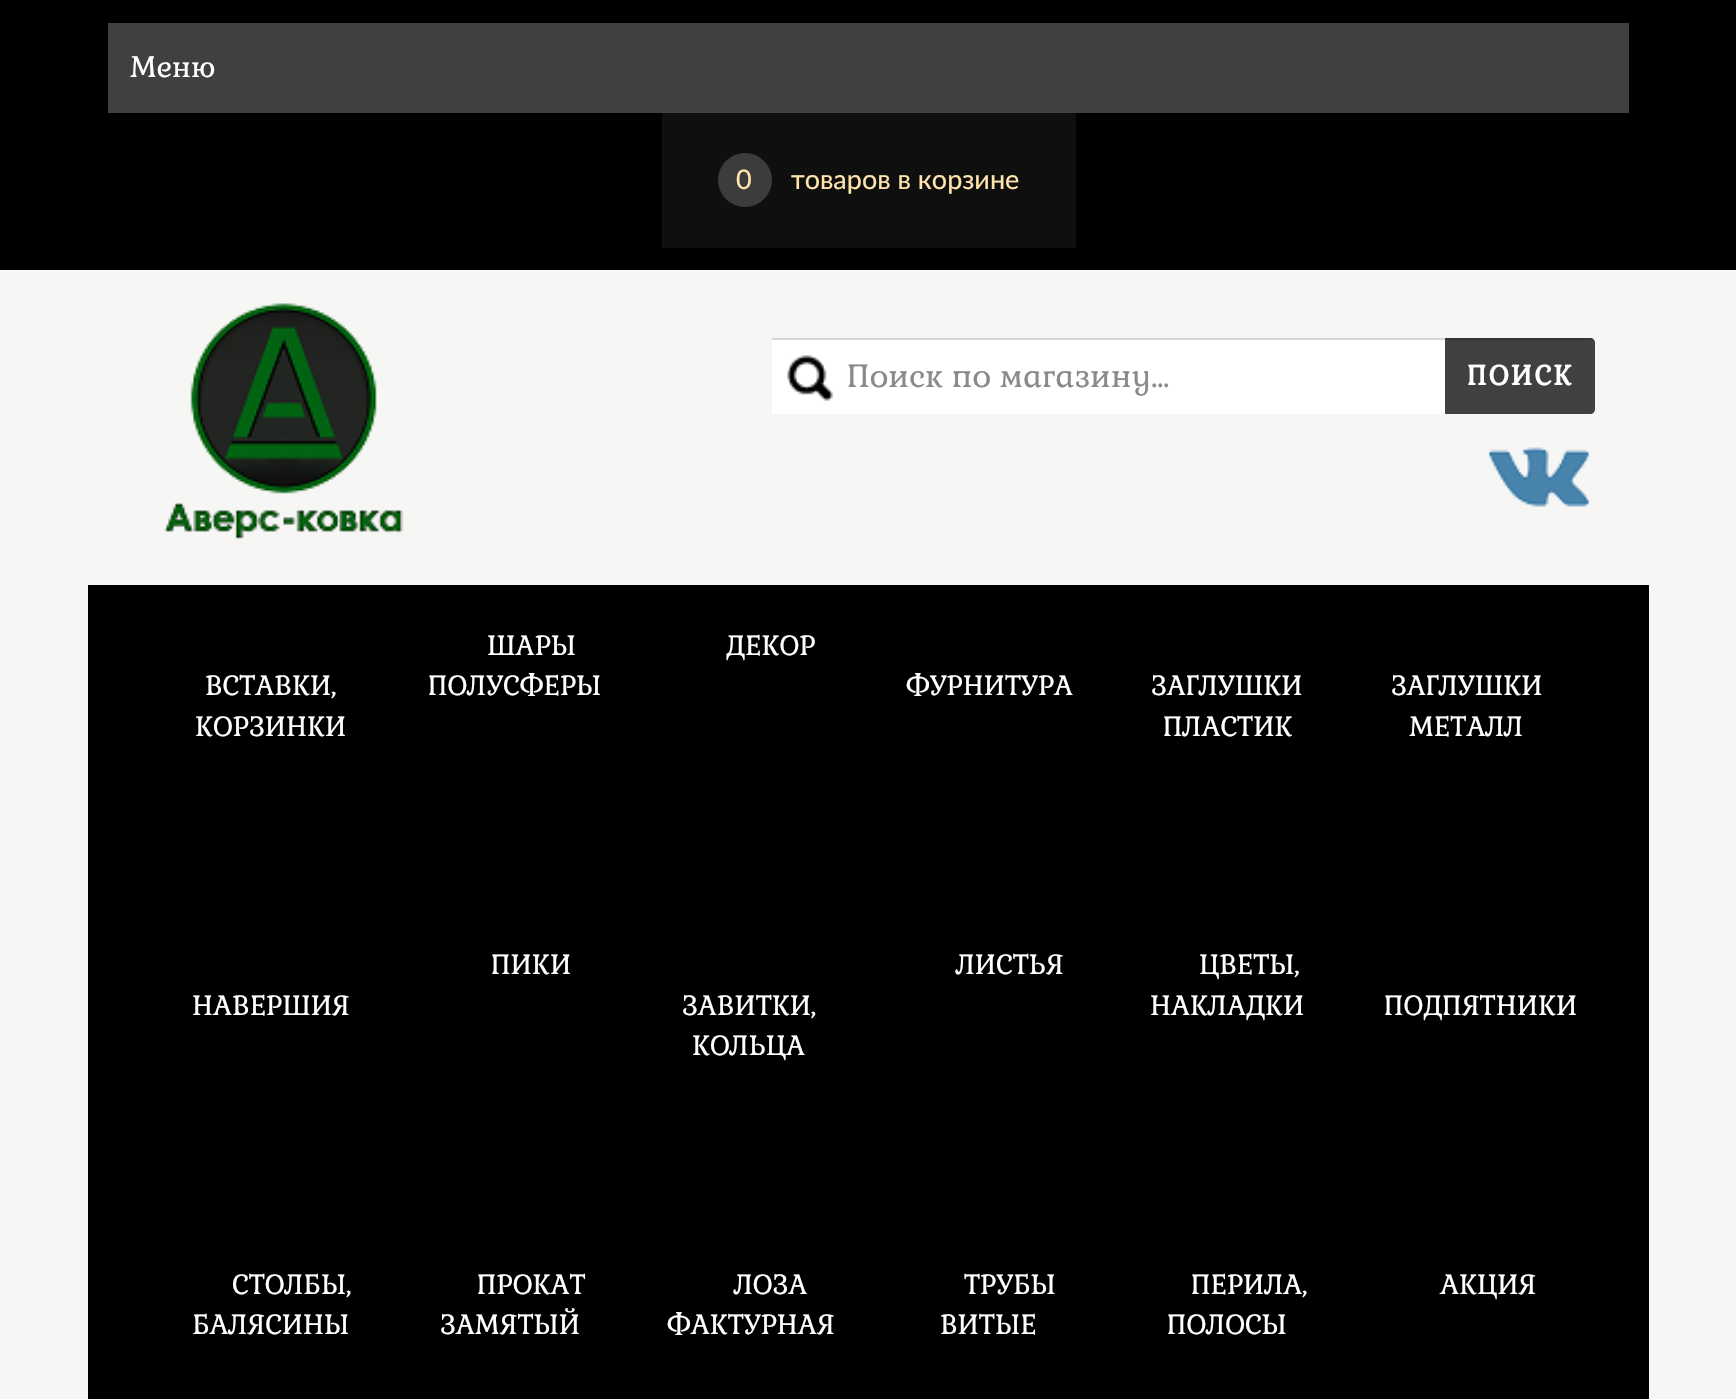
void draw(SkCanvas* c) {
SkPaint p;
p.setAntiAlias(true);
auto F=[&](const char* family, int weight, float size, bool italic = false){SkFontStyle style(weight, SkFontStyle::kNormal_Width,italic ? SkFontStyle::kItalic_Slant : SkFontStyle::kUpright_Slant);SkFont result(fontMgr->matchFamilyStyle(family, style), size);result.setSubpixel(true);return result;};
auto T=[&](const char* s, float x, float y, const SkFont& font){c->drawString(s, x, y, font, p);};
auto L=[&](const char* s, float x, float y, const SkFont& font, const SkPaint& ink, float letter, float word){std::vector<SkGlyphID> glyphs(font.countText(s, strlen(s), SkTextEncoding::kUTF8));std::vector<float> xs(glyphs.size());font.textToGlyphs(s, strlen(s), SkTextEncoding::kUTF8, glyphs);font.getXPos(glyphs, xs, x);float extra = 0;for (size_t i = 0; i < glyphs.size(); i++) {xs[i] += extra;extra += letter + word * (glyphs[i] == font.unicharToGlyph(' '));}c->drawTextBlob(SkTextBlob::MakeFromPosHGlyphs(glyphs, xs, y, font), 0, 0, ink);};
auto R=[&](float x, float y, float w, float h){c->drawRect(SkRect::MakeXYWH(x, y, w, h), p);};
auto I=[&](const char* path, float x, float y, float w, float h){auto image = SkImages::DeferredFromEncodedData(SkData::MakeFromFileName(path));c->drawImageRect(image, SkRect::MakeXYWH(x, y, w, h), SkSamplingOptions());};
auto P=[&](const char* data, bool evenOdd = false){SkPath result = *SkParsePath::FromSVGString(data);if (evenOdd) result.setFillType(SkPathFillType::kEvenOdd);return result;};
c->clear(0xfff6f6f4);
p.setColor(0xff000000);
R(0,0,1736,270);
p.setColor(0xff404040);
R(108,23,1521,90);
auto f1 = F("Gabriela",400,29);
p.setColor(0xffffffff);
T("Меню",130,77,f1);
p.setColor(0xff0f0f0f);
R(662,113,414,135);
p.setColor(0xff3c3c3c);
c->drawCircle(745,180,27,p);
auto f2 = F("Lato",400,27);
p.setColor(0xffffe4ab);
T("0",736,189,f2);
T("товаров в корзине",791,189,f2);
I("1.png",163,303,241,236);
p.setColor(0xffffffff);
R(772,340,673,74);
I("2.png",787,355,47,47);
p.setColor(0xffd4d4d4);
R(772,338,673,2);
auto f3 = F("Gabriela",400,31.5);
p.setColor(0xff8a8a8a);
T("Поиск по магазину...",847,387,f3);
p.setColor(0xff404040);
c->drawPath(P("M1445 338h145c3 0 5 2 5 5v66c0 3-2 5-5 5h-145z"),p);
p.setColor(0x2b000000);
c->drawPath(P("M1445 338v2h146c2 0 4 2 4 4c0-3-2-6-5-6z"),p);
auto f4 = F("Gabriela",700,27);
p.setColor(0xffffffff);
L("ПОИСК",1467,385,f4,p,2.25,0);
I("3.png",1489,447,101,60);
p.setColor(0xff000000);
R(88,585,1561,814);
auto f5 = F("Gabriela",400,27);
p.setColor(0xffffffff);
T("ВСТАВКИ,",205,695,f5);
T("КОРЗИНКИ",195,736,f5);
T("ШАРЫ",487,655,f5);
T("ПОЛУСФЕРЫ",428,695,f5);
T("ДЕКОР",726,655,f5);
T("ФУРНИТУРА",906,695,f5);
T("ЗАГЛУШКИ",1151,695,f5);
T("ПЛАСТИК",1163,736,f5);
T("ЗАГЛУШКИ",1391,695,f5);
T("МЕТАЛЛ",1409,736,f5);
T("ПИКИ",491,974,f5);
T("ЛИСТЬЯ",956,974,f5);
T("ЦВЕТЫ,",1199,974,f5);
T("НАКЛАДКИ",1150,1015,f5);
T("НАВЕРШИЯ",192,1015,f5);
T("ЗАВИТКИ,",682,1015,f5);
T("КОЛЬЦА",692,1055,f5);
T("ПОДПЯТНИКИ",1384,1015,f5);
T("СТОЛБЫ,",232,1294,f5);
T("БАЛЯСИНЫ",192,1334,f5);
T("ПРОКАТ",477,1294,f5);
T("ЗАМЯТЫЙ",440,1334,f5);
T("ЛОЗА",734,1294,f5);
T("ФАКТУРНАЯ",667,1334,f5);
T("ТРУБЫ",964,1294,f5);
T("ВИТЫЕ",940,1334,f5);
T("ПЕРИЛА,",1191,1294,f5);
T("ПОЛОСЫ",1167,1334,f5);
T("АКЦИЯ",1440,1294,f5);
}
